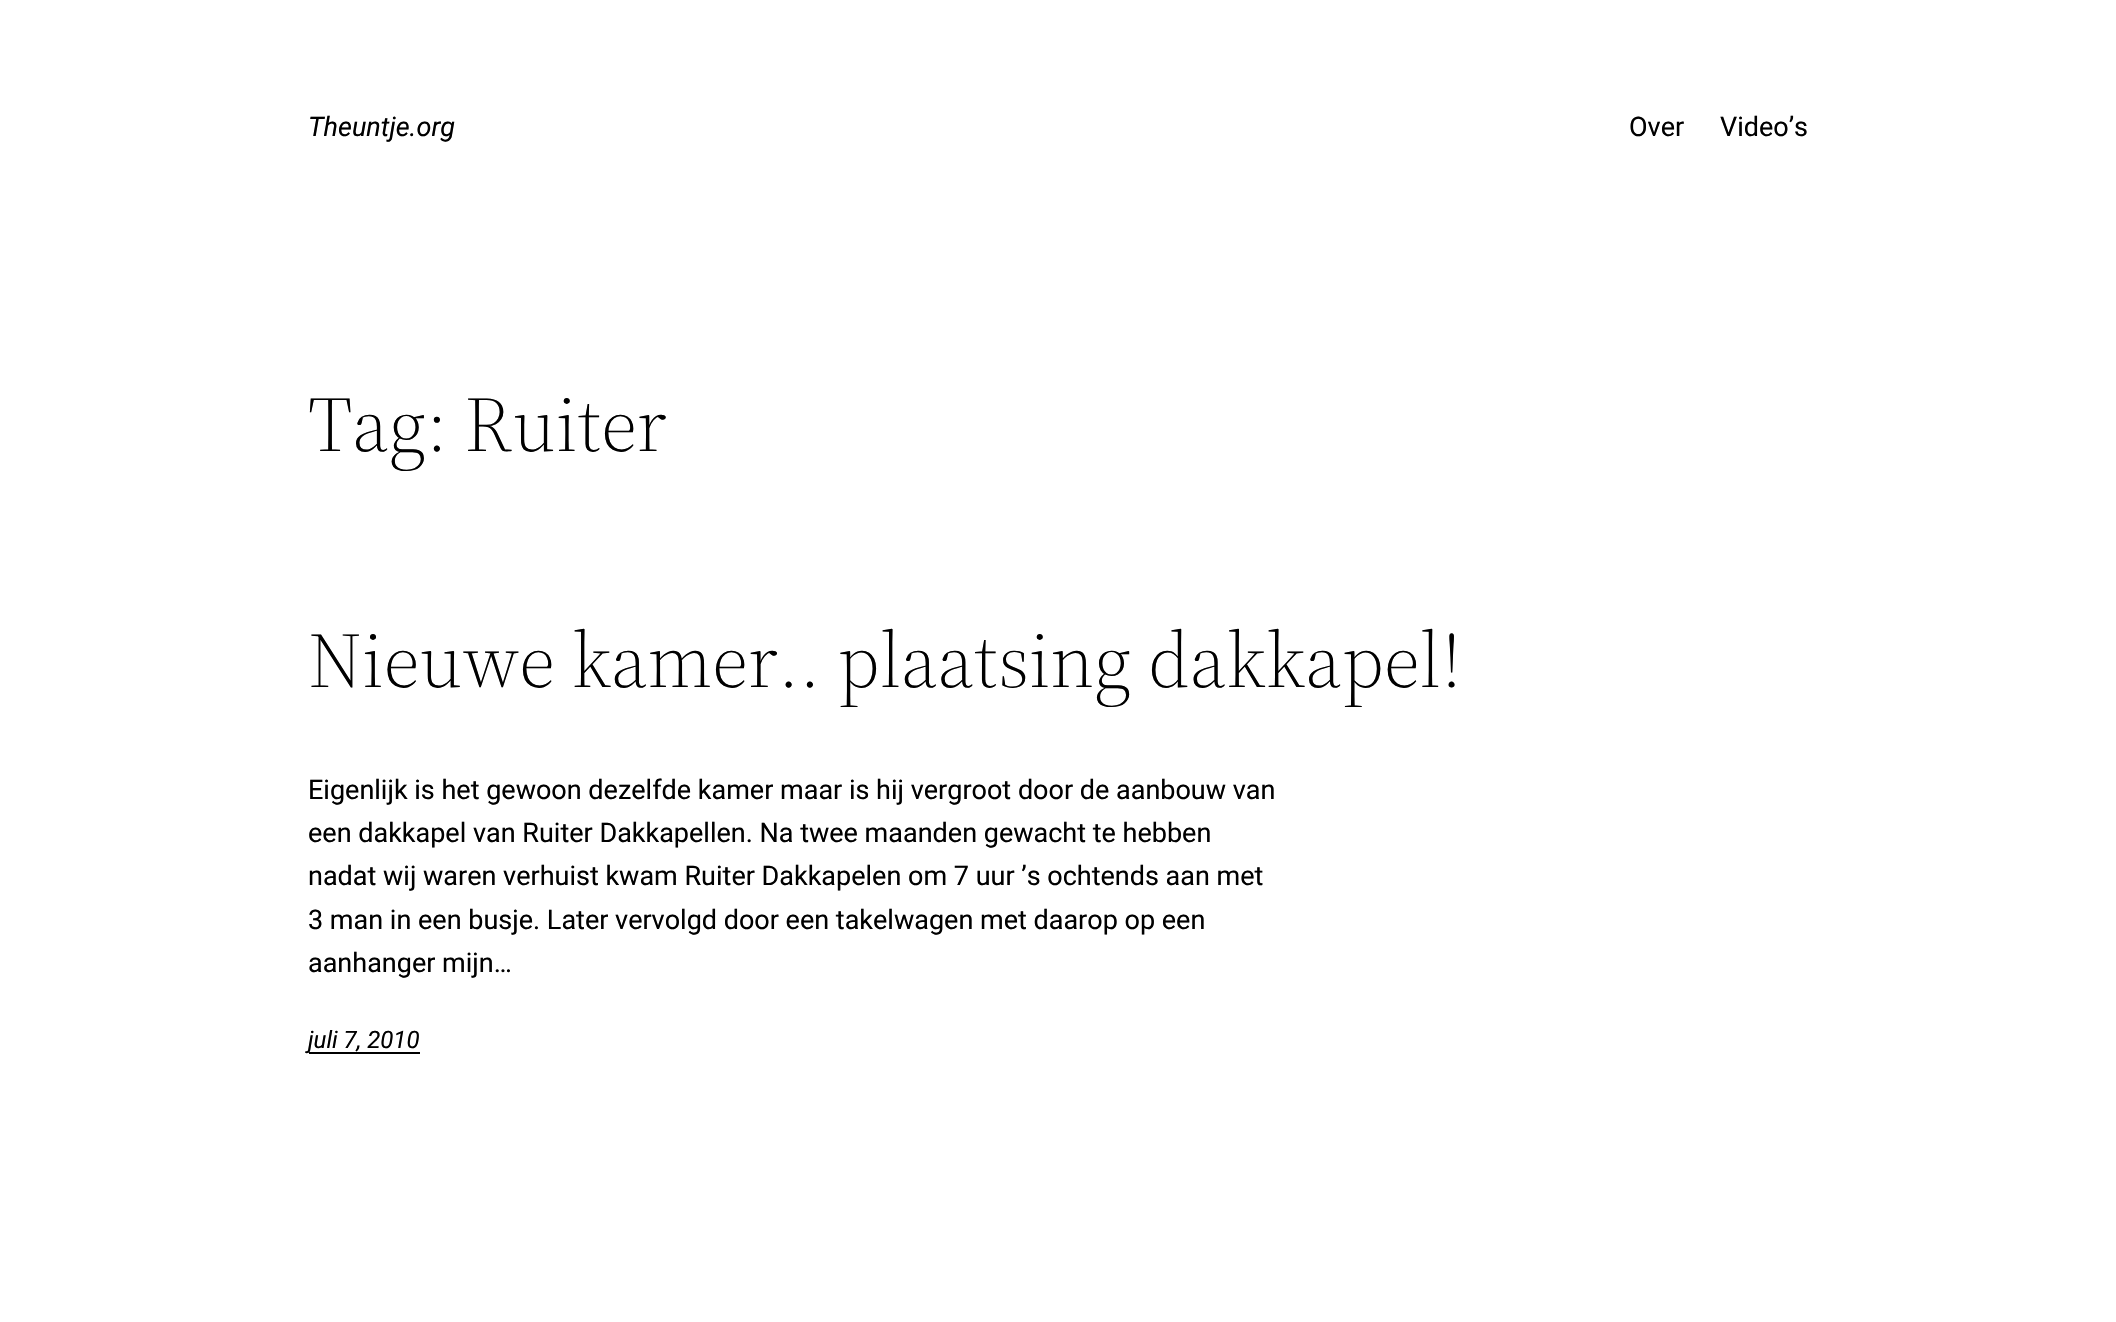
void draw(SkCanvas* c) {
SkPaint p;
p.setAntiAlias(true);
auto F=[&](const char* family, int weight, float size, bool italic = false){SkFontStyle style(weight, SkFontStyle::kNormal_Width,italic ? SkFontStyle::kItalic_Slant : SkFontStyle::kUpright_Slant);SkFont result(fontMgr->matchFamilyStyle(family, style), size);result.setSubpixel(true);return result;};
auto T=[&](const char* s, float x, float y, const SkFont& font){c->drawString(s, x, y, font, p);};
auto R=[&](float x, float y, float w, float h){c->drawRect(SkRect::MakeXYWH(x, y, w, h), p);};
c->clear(0xffffffff);
auto f1 = F("Roboto",400,27,true);
p.setColor(0xff000000);
T("Theuntje.org",308,136,f1);
auto f2 = F("Roboto",400,27);
T("Over",1629,136,f2);
T("Video’s",1720,136,f2);
auto f3 = F("Source Serif 4",300,78);
T("Tag: Ruiter",308,451,f3);
T("Nieuwe kamer.. plaatsing dakkapel!",308,687,f3);
T("Eigenlijk is het gewoon dezelfde kamer maar is hij vergroot door de aanbouw van",308,799,f2);
T("een dakkapel van Ruiter Dakkapellen. Na twee maanden gewacht te hebben",308,842,f2);
T("nadat wij waren verhuist kwam Ruiter Dakkapelen om 7 uur ’s ochtends aan met",308,885,f2);
T("3 man in een busje. Later vervolgd door een takelwagen met daarop op een",308,929,f2);
T("aanhanger mijn…",308,972,f2);
R(309,1052,111,2);
auto f4 = F("Roboto",400,24,true);
T("juli 7, 2010",308,1048,f4);
}
